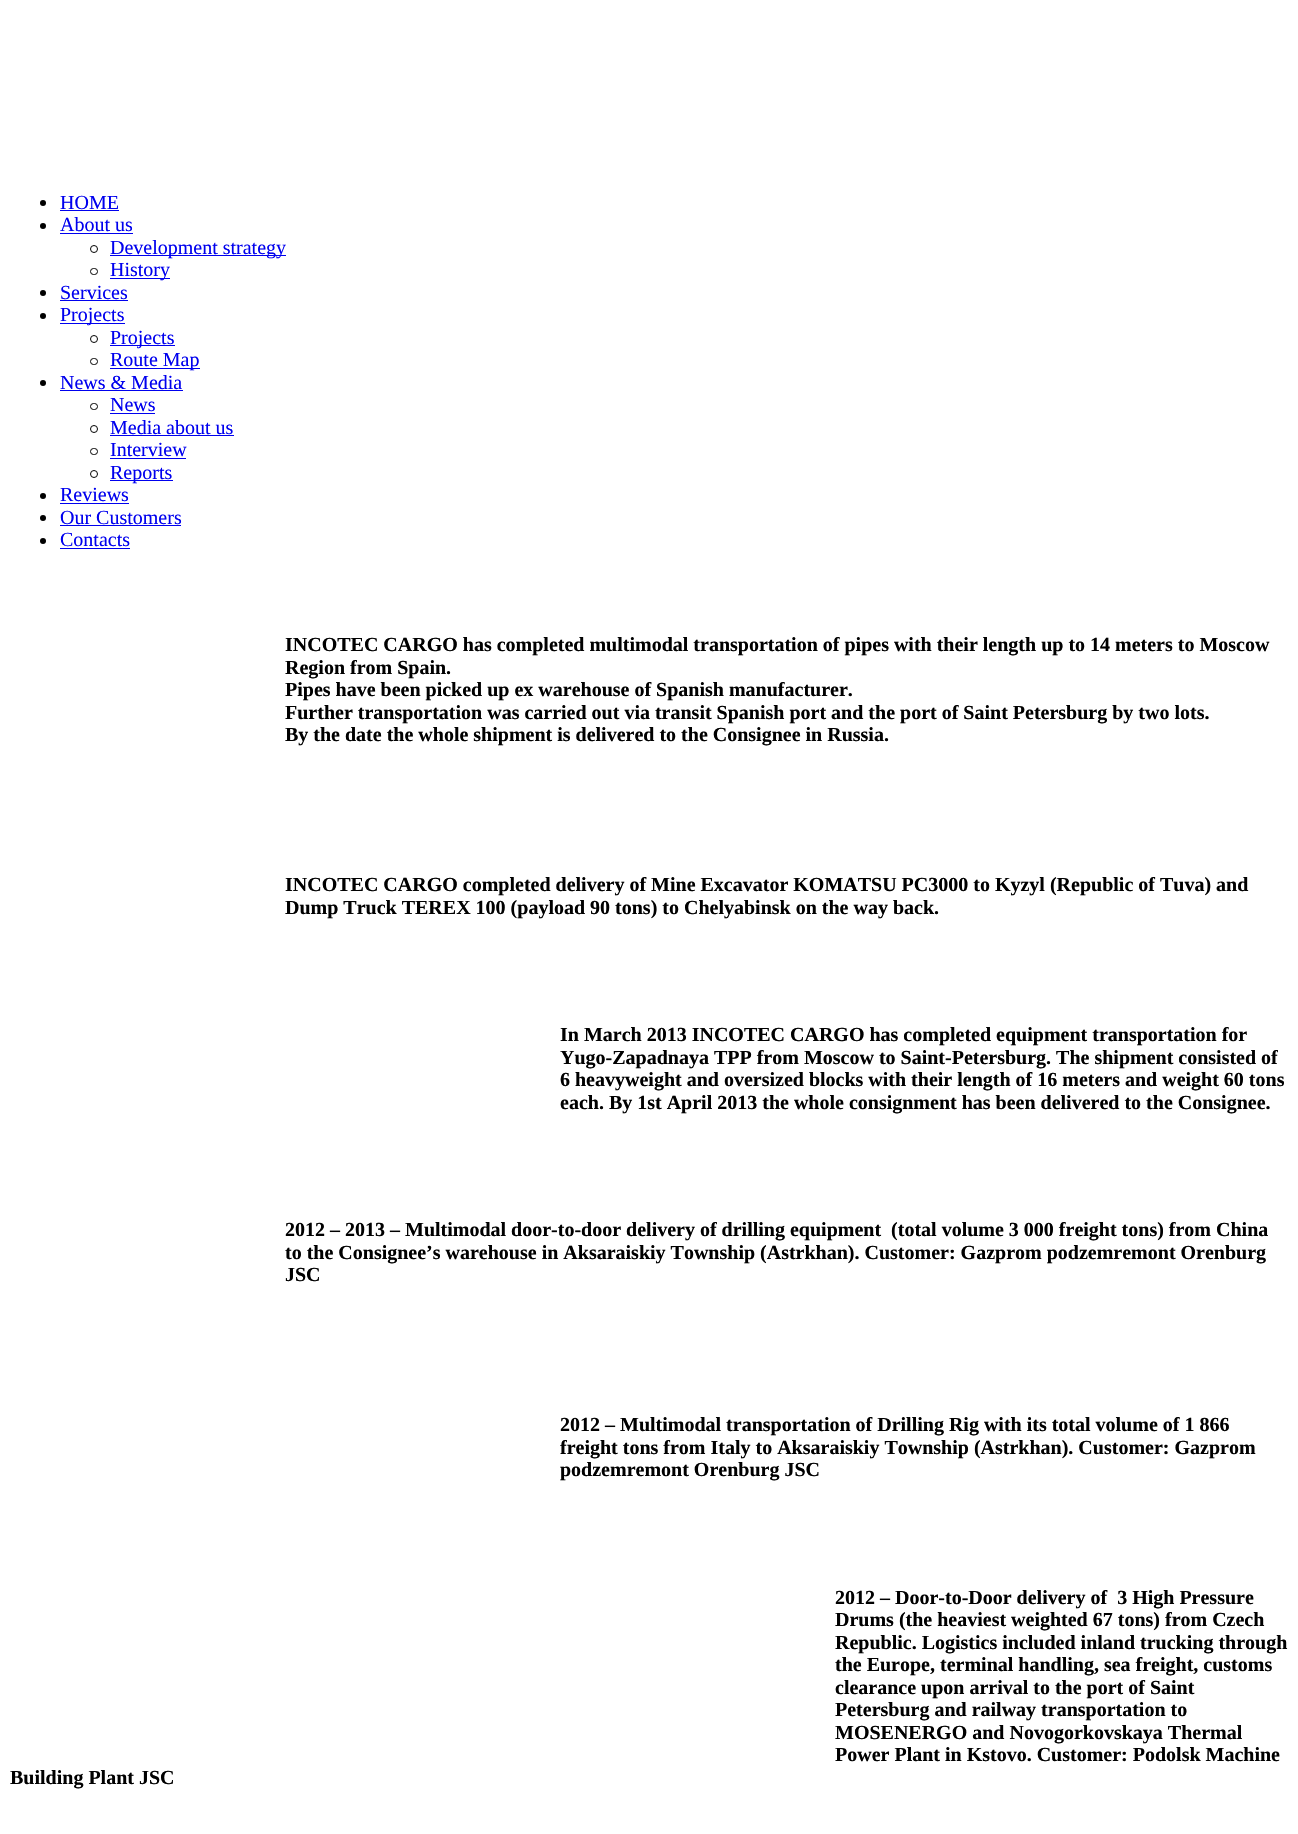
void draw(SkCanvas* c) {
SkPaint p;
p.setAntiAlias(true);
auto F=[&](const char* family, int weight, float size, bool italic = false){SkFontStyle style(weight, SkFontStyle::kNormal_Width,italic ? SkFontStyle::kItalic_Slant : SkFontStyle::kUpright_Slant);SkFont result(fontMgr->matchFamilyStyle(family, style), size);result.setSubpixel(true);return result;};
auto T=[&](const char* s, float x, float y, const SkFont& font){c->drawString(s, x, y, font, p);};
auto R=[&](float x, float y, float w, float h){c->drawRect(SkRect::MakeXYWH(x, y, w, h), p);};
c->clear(0xffffffff);
p.setColor(0xff000000);
c->drawCircle(43,203,3,p);
auto f1 = F("Liberation Serif",400,20);
p.setColor(0xff0000ee);
T("HOME",60,209,f1);
R(60,210,59,1);
p.setColor(0xff000000);
c->drawCircle(43,226,3,p);
p.setColor(0xff0000ee);
T("About us",60,231,f1);
R(60,233,73,1);
p.setStroke(true);
p.setStrokeWidth(1);
p.setColor(0xff000000);
c->drawCircle(94,249,3.5,p);
p.setStroke(false);
p.setColor(0xff0000ee);
R(110,255,176,1);
T("Development strategy",110,254,f1);
p.setStroke(true);
p.setColor(0xff000000);
c->drawRoundRect(SkRect::MakeXYWH(90.5,268.5,7,6),3,3,p);
p.setStroke(false);
p.setColor(0xff0000ee);
R(110,278,60,1);
T("History",110,276,f1);
p.setColor(0xff000000);
c->drawCircle(43,293,3,p);
p.setColor(0xff0000ee);
T("Services",60,299,f1);
R(60,300,68,1);
p.setColor(0xff000000);
c->drawCircle(43,316,3,p);
p.setColor(0xff0000ee);
R(60,323,65,1);
T("Projects",60,321,f1);
p.setStroke(true);
p.setColor(0xff000000);
c->drawCircle(94,339,3.5,p);
p.setStroke(false);
p.setColor(0xff0000ee);
R(110,345,65,1);
T("Projects",110,344,f1);
p.setStroke(true);
p.setColor(0xff000000);
c->drawRoundRect(SkRect::MakeXYWH(90.5,358.5,7,6),3,3,p);
p.setStroke(false);
p.setColor(0xff0000ee);
R(110,368,90,1);
T("Route Map",110,366,f1);
p.setColor(0xff000000);
c->drawCircle(43,383,3,p);
p.setColor(0xff0000ee);
T("News & Media",60,389,f1);
R(60,390,123,1);
p.setStroke(true);
p.setColor(0xff000000);
c->drawRoundRect(SkRect::MakeXYWH(90.5,403.5,7,6),3,3,p);
p.setStroke(false);
p.setColor(0xff0000ee);
T("News",110,411,f1);
R(110,413,45,1);
p.setStroke(true);
p.setColor(0xff000000);
c->drawCircle(94,429,3.5,p);
p.setStroke(false);
p.setColor(0xff0000ee);
T("Media about us",110,434,f1);
R(110,435,124,1);
p.setStroke(true);
p.setColor(0xff000000);
c->drawRoundRect(SkRect::MakeXYWH(90.5,448.5,7,6),3,3,p);
p.setStroke(false);
p.setColor(0xff0000ee);
T("Interview",110,456,f1);
R(110,458,76,1);
p.setStroke(true);
p.setColor(0xff000000);
c->drawCircle(94,474,3.5,p);
p.setStroke(false);
p.setColor(0xff0000ee);
R(110,480,63,1);
T("Reports",110,479,f1);
p.setColor(0xff000000);
c->drawCircle(43,496,3,p);
p.setColor(0xff0000ee);
T("Reviews",60,501,f1);
R(60,503,69,1);
p.setColor(0xff000000);
c->drawCircle(43,518,3,p);
p.setColor(0xff0000ee);
T("Our Customers",60,524,f1);
R(60,525,121,1);
p.setColor(0xff000000);
c->drawCircle(43,541,3,p);
p.setColor(0xff0000ee);
T("Contacts",60,546,f1);
R(60,548,70,1);
auto f2 = F("Liberation Serif",700,20);
p.setColor(0xff000000);
T("INCOTEC CARGO has completed multimodal transportation of pipes with their length up to 14 meters to Moscow",285,651,f2);
T("Region from Spain.",285,674,f2);
T("Pipes have been picked up ex warehouse of Spanish manufacturer.",285,696,f2);
T("Further transportation was carried out via transit Spanish port and the port of Saint Petersburg by two lots.",285,719,f2);
T("By the date the whole shipment is delivered to the Consignee in Russia.",285,741,f2);
T("INCOTEC CARGO completed delivery of Mine Excavator KOMATSU PC3000 to Kyzyl (Republic of Tuva) and",285,891,f2);
T("Dump Truck TEREX 100 (payload 90 tons) to Chelyabinsk on the way back.",285,914,f2);
T("In March 2013 INCOTEC CARGO has completed equipment transportation for",560,1041,f2);
T("Yugo-Zapadnaya TPP from Moscow to Saint-Petersburg. The shipment consisted of",560,1064,f2);
T("6 heavyweight and oversized blocks with their length of 16 meters and weight 60 tons",560,1086,f2);
T("each. By 1st April 2013 the whole consignment has been delivered to the Consignee.",560,1109,f2);
T("2012 – 2013 – Multimodal door-to-door delivery of drilling equipment  (total volume 3 000 freight tons) from China",285,1236,f2);
T("to the Consignee’s warehouse in Aksaraiskiy Township (Astrkhan). Customer: Gazprom podzemremont Orenburg",285,1259,f2);
T("JSC",285,1281,f2);
T("2012 – Multimodal transportation of Drilling Rig with its total volume of 1 866",560,1431,f2);
T("freight tons from Italy to Aksaraiskiy Township (Astrkhan). Customer: Gazprom",560,1454,f2);
T("podzemremont Orenburg JSC",560,1476,f2);
T("2012 – Door-to-Door delivery of  3 High Pressure",835,1604,f2);
T("Drums (the heaviest weighted 67 tons) from Czech",835,1626,f2);
T("Republic. Logistics included inland trucking through",835,1649,f2);
T("the Europe, terminal handling, sea freight, customs",835,1671,f2);
T("clearance upon arrival to the port of Saint",835,1694,f2);
T("Petersburg and railway transportation to",835,1716,f2);
T("MOSENERGO and Novogorkovskaya Thermal",835,1739,f2);
T("Power Plant in Kstovo. Customer: Podolsk Machine",835,1761,f2);
T("Building Plant JSC",10,1784,f2);
}
